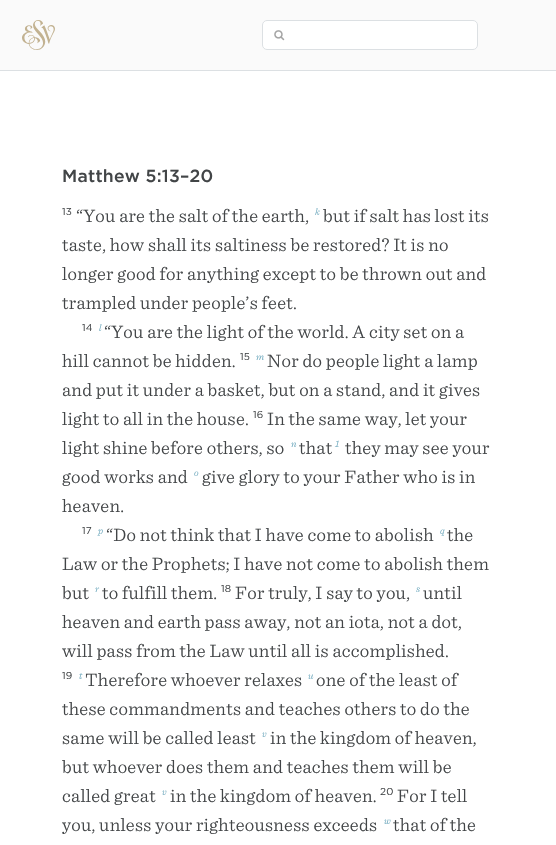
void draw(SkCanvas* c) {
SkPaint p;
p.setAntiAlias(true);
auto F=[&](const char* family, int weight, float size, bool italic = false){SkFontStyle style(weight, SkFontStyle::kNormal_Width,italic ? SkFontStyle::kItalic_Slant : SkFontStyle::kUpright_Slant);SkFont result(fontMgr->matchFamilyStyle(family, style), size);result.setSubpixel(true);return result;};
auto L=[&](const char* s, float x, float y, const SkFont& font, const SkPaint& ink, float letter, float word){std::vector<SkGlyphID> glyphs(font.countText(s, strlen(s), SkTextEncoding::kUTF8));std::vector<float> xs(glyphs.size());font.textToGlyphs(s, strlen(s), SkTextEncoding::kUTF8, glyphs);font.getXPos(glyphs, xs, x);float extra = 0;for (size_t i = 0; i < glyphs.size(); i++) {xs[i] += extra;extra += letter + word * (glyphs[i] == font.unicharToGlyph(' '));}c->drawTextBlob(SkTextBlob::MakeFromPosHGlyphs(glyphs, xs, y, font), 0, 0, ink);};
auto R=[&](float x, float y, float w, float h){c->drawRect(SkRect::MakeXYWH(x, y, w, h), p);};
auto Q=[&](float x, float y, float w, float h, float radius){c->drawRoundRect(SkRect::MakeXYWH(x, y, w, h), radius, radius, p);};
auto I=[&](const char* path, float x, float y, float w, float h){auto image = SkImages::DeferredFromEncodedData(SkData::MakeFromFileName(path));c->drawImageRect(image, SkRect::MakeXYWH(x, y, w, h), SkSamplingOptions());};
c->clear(0xfffafafa);
I("1.png",22,20,33,30);
p.setColor(0xffffffff);
Q(262,20,216,30,5);
I("2.png",274,30,11,11);
p.setStroke(true);
p.setStrokeWidth(1);
p.setColor(0xffdce0e3);
c->drawRoundRect(SkRect::MakeXYWH(262.5,20.5,215,29),4.5,4.5,p);
p.setStroke(false);
p.setColor(0xffffffff);
R(0,71,556,774);
p.setColor(0xffdce0e3);
R(0,70,556,1);
auto f1 = F("Gotham",500,17.5);
p.setColor(0xff424547);
L("Matthew 5:13–20",62,182,f1,p,.25,0);
auto f2 = F("Gotham",400,10);
L("13",62,215,f2,p,.25,0);
auto f3 = F("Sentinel",300,19);
L("“You are the salt of the earth,",76,222,f3,p,.25,0);
auto f4 = F("Sentinel",300,10,true);
p.setColor(0xff72abbf);
L("k",315,215,f4,p,.25,0);
p.setColor(0xff424547);
L("but if salt has lost its",323,222,f3,p,.25,0);
L("taste, how shall its saltiness be restored? It is no",62,251,f3,p,.25,0);
L("longer good for anything except to be thrown out and",62,280,f3,p,.25,0);
L("trampled under people’s feet.",62,309,f3,p,.25,0);
L("14",82,331,f2,p,.25,0);
p.setColor(0xff72abbf);
L("l",99,331,f4,p,.25,0);
p.setColor(0xff424547);
L("“You are the light of the world. A city set on a",104,338,f3,p,.25,0);
L("hill cannot be hidden.",62,367,f3,p,.25,0);
L("15",240,360,f2,p,.25,0);
p.setColor(0xff72abbf);
L("m",256,360,f4,p,.25,0);
p.setColor(0xff424547);
L("Nor do people light a lamp",267,367,f3,p,.25,0);
L("and put it under a basket, but on a stand, and it gives",62,396,f3,p,.25,0);
L("light to all in the house.",62,425,f3,p,.25,0);
L("16",253,418,f2,p,.25,0);
L("In the same way, let your",267,425,f3,p,.25,0);
L("light shine before others, so",62,454,f3,p,.25,0);
p.setColor(0xff72abbf);
L("n",291,447,f4,p,.25,0);
p.setColor(0xff424547);
L("that",299,454,f3,p,.25,0);
p.setColor(0xff72abbf);
L("1",335,447,f4,p,.25,0);
p.setColor(0xff424547);
L("they may see your",345,454,f3,p,.25,0);
L("good works and",62,483,f3,p,.25,0);
p.setColor(0xff72abbf);
L("o",194,476,f4,p,.25,0);
p.setColor(0xff424547);
L("give glory to your Father who is in",202,483,f3,p,.25,0);
L("heaven.",62,512,f3,p,.25,0);
L("17",82,534,f2,p,.25,0);
p.setColor(0xff72abbf);
L("p",98,534,f4,p,.25,0);
p.setColor(0xff424547);
L("“Do not think that I have come to abolish",106,541,f3,p,.25,0);
p.setColor(0xff72abbf);
L("q",440,534,f4,p,.25,0);
p.setColor(0xff424547);
L("the",447,541,f3,p,.25,0);
L("Law or the Prophets; I have not come to abolish them",62,570,f3,p,.25,0);
L("but",62,599,f3,p,.25,0);
p.setColor(0xff72abbf);
L("r",95,592,f4,p,.25,0);
p.setColor(0xff424547);
L("to fulfill them.",102,599,f3,p,.25,0);
L("18",221,592,f2,p,.25,0);
L("For truly, I say to you,",235,599,f3,p,.25,0);
p.setColor(0xff72abbf);
L("s",416,592,f4,p,.25,0);
p.setColor(0xff424547);
L("until",423,599,f3,p,.25,0);
L("heaven and earth pass away, not an iota, not a dot,",62,628,f3,p,.25,0);
L("will pass from the Law until all is accomplished.",62,657,f3,p,.25,0);
L("19",62,679,f2,p,.25,0);
p.setColor(0xff72abbf);
L("t",79,679,f4,p,.25,0);
p.setColor(0xff424547);
L("Therefore whoever relaxes",85,686,f3,p,.25,0);
p.setColor(0xff72abbf);
L("u",308,679,f4,p,.25,0);
p.setColor(0xff424547);
L("one of the least of",316,686,f3,p,.25,0);
L("these commandments and teaches others to do the",62,715,f3,p,.25,0);
L("same will be called least",62,744,f3,p,.25,0);
p.setColor(0xff72abbf);
L("v",262,737,f4,p,.25,0);
p.setColor(0xff424547);
L("in the kingdom of heaven,",270,744,f3,p,.25,0);
L("but whoever does them and teaches them will be",62,773,f3,p,.25,0);
L("called great",62,802,f3,p,.25,0);
p.setColor(0xff72abbf);
L("v",162,795,f4,p,.25,0);
p.setColor(0xff424547);
L("in the kingdom of heaven.",170,802,f3,p,.25,0);
L("20",380,795,f2,p,.25,0);
L("For I tell",397,802,f3,p,.25,0);
L("you, unless your righteousness exceeds",62,831,f3,p,.25,0);
p.setColor(0xff72abbf);
L("w",384,824,f4,p,.25,0);
p.setColor(0xff424547);
L("that of the",393,831,f3,p,.25,0);
}
